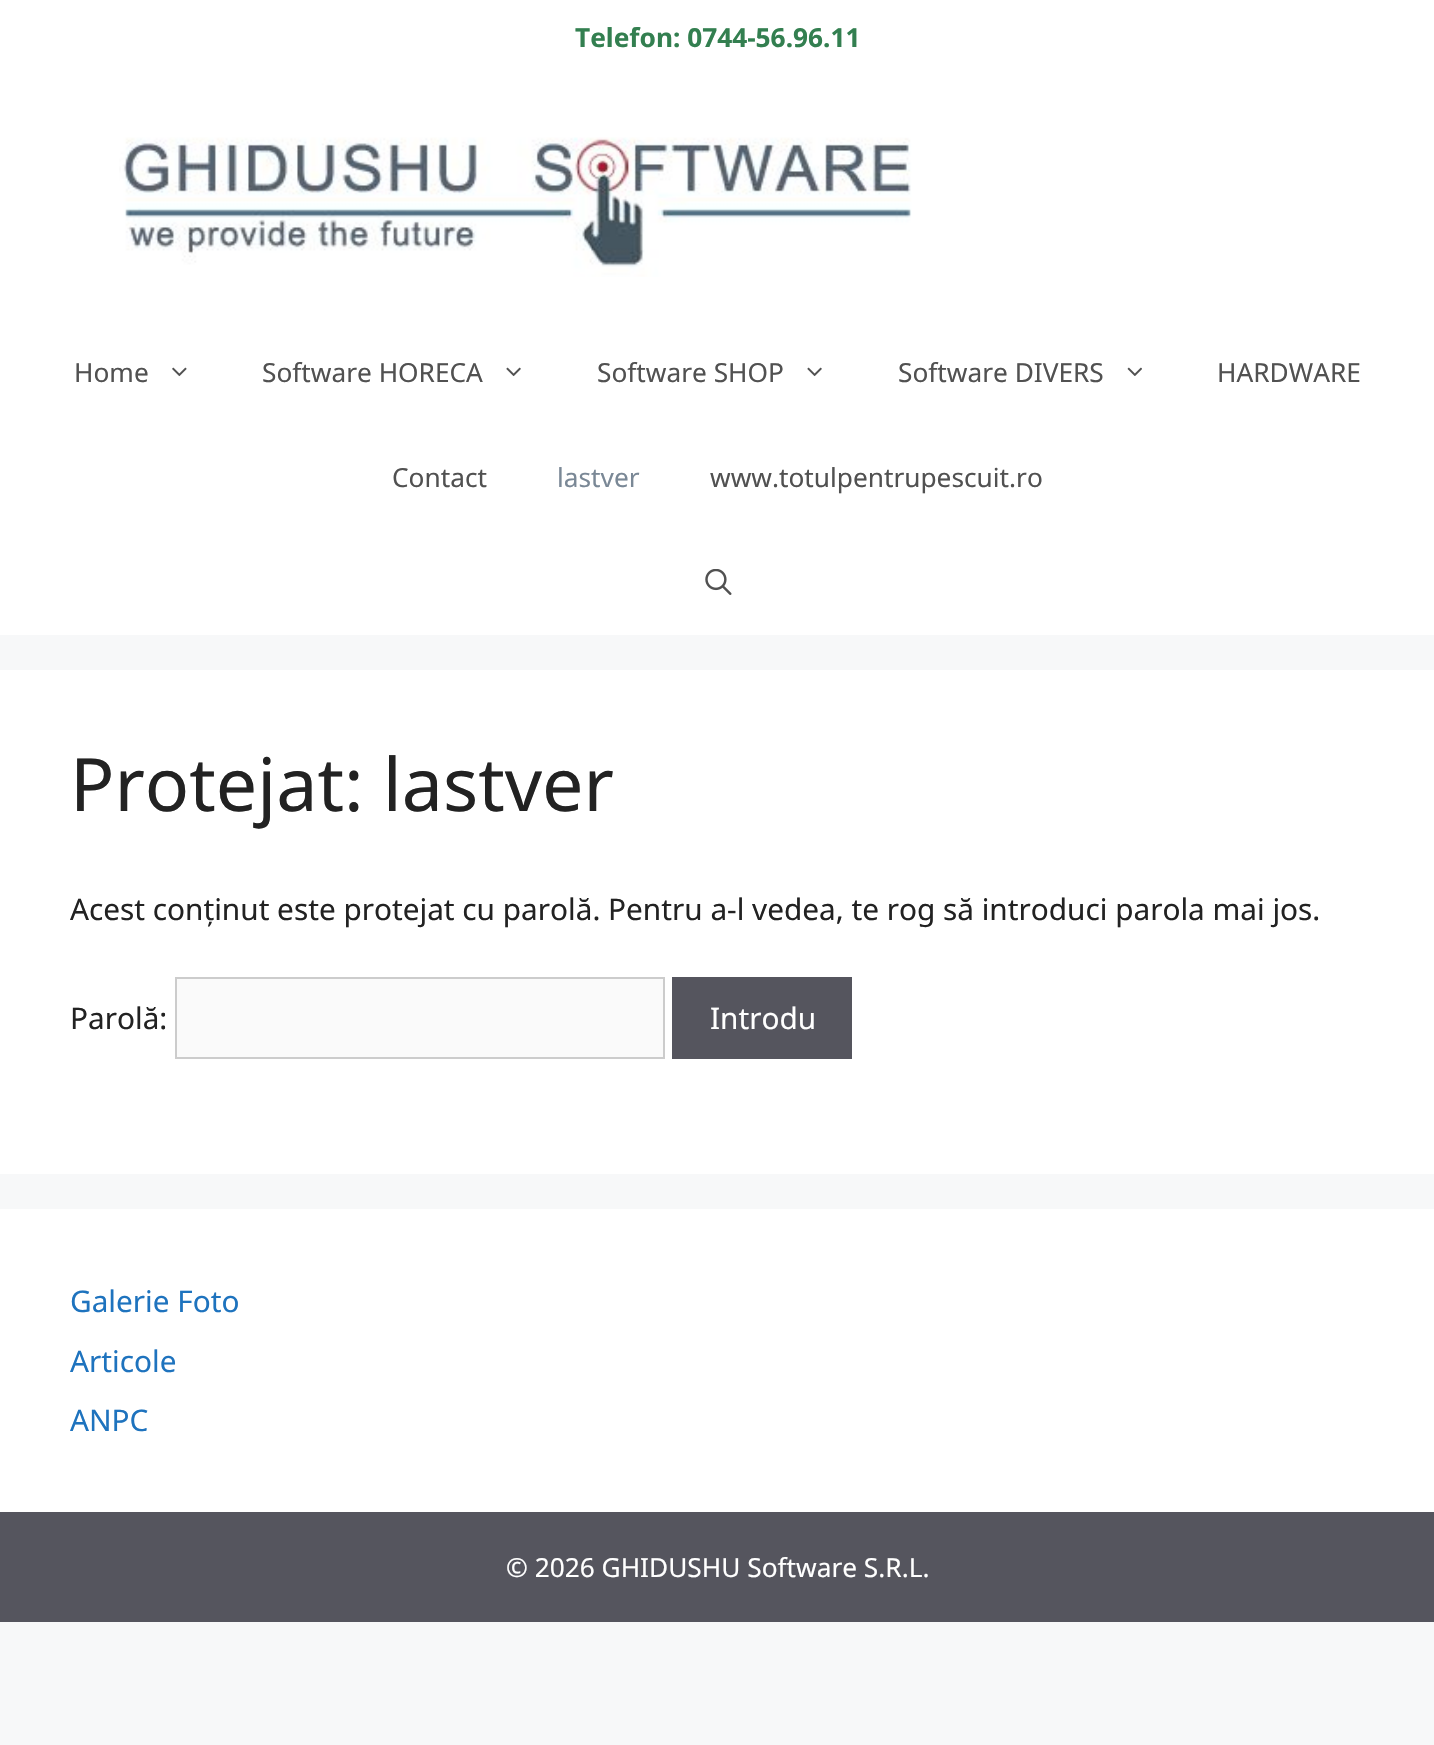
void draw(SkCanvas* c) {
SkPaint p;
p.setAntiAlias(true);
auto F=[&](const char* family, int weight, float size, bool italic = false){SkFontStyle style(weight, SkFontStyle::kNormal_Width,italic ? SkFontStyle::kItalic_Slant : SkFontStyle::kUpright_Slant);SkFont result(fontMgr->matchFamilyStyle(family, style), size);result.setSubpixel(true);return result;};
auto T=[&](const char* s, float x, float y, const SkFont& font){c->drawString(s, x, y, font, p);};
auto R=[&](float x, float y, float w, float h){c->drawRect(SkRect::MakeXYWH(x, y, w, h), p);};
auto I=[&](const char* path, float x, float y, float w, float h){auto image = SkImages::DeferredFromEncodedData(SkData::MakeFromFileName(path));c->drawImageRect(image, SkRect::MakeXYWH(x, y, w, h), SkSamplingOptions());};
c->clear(0xfff7f8f9);
p.setColor(0xffffffff);
R(0,0,1434,75);
auto f1 = F("Noto Sans",700,26.25);
p.setColor(0xff337f50);
T("Telefon: 0744-56.96.11",575,47,f1);
p.setColor(0xffffffff);
R(0,75,1434,560);
I("1.png",119,137,793,140);
auto f2 = F("Noto Sans",400,26.25);
p.setColor(0xff515151);
T("Home",74,382,f2);
I("2.png",172,367,15,10);
T("Software HORECA",262,382,f2);
I("3.png",506,367,15,10);
T("Software SHOP",597,382,f2);
I("3.png",807,367,15,10);
T("Software DIVERS",898,382,f2);
I("4.png",1127,367,15,9);
T("HARDWARE",1217,382,f2);
T("Contact",392,487,f2);
p.setColor(0xff7a8896);
T("lastver",557,487,f2);
p.setColor(0xff515151);
T("www.totulpentrupescuit.ro",710,487,f2);
I("5.png",705,569,27,26);
p.setColor(0xffffffff);
R(0,670,1434,504);
auto f3 = F("Noto Sans",400,73.5);
p.setColor(0xff222222);
T("Protejat: lastver",70,811,f3);
auto f4 = F("Noto Sans",400,29.75);
T("Acest conținut este protejat cu parolă. Pentru a-l vedea, te rog să introduci parola mai jos.",70,920,f4);
T("Parolă:",70,1029,f4);
p.setColor(0xfffafafa);
c->drawRect(SkRect::MakeXYWH(176,978,488,80),p);
p.setStroke(true);
p.setStrokeWidth(2);
p.setColor(0xffcccccc);
c->drawRect(SkRect::MakeXYWH(176,978,488,80),p);
p.setStroke(false);
p.setColor(0xff55555e);
R(672,977,180,82);
p.setColor(0xffffffff);
T("Introdu",710,1029,f4);
R(0,1209,1434,303);
p.setColor(0xff1e73be);
T("Galerie Foto",70,1312,f4);
T("Articole",70,1372,f4);
T("ANPC",70,1431,f4);
p.setColor(0xff55555e);
R(0,1512,1434,110);
p.setColor(0xffffffff);
T("© 2026 GHIDUSHU Software S.R.L.",506,1577,f2);
}
